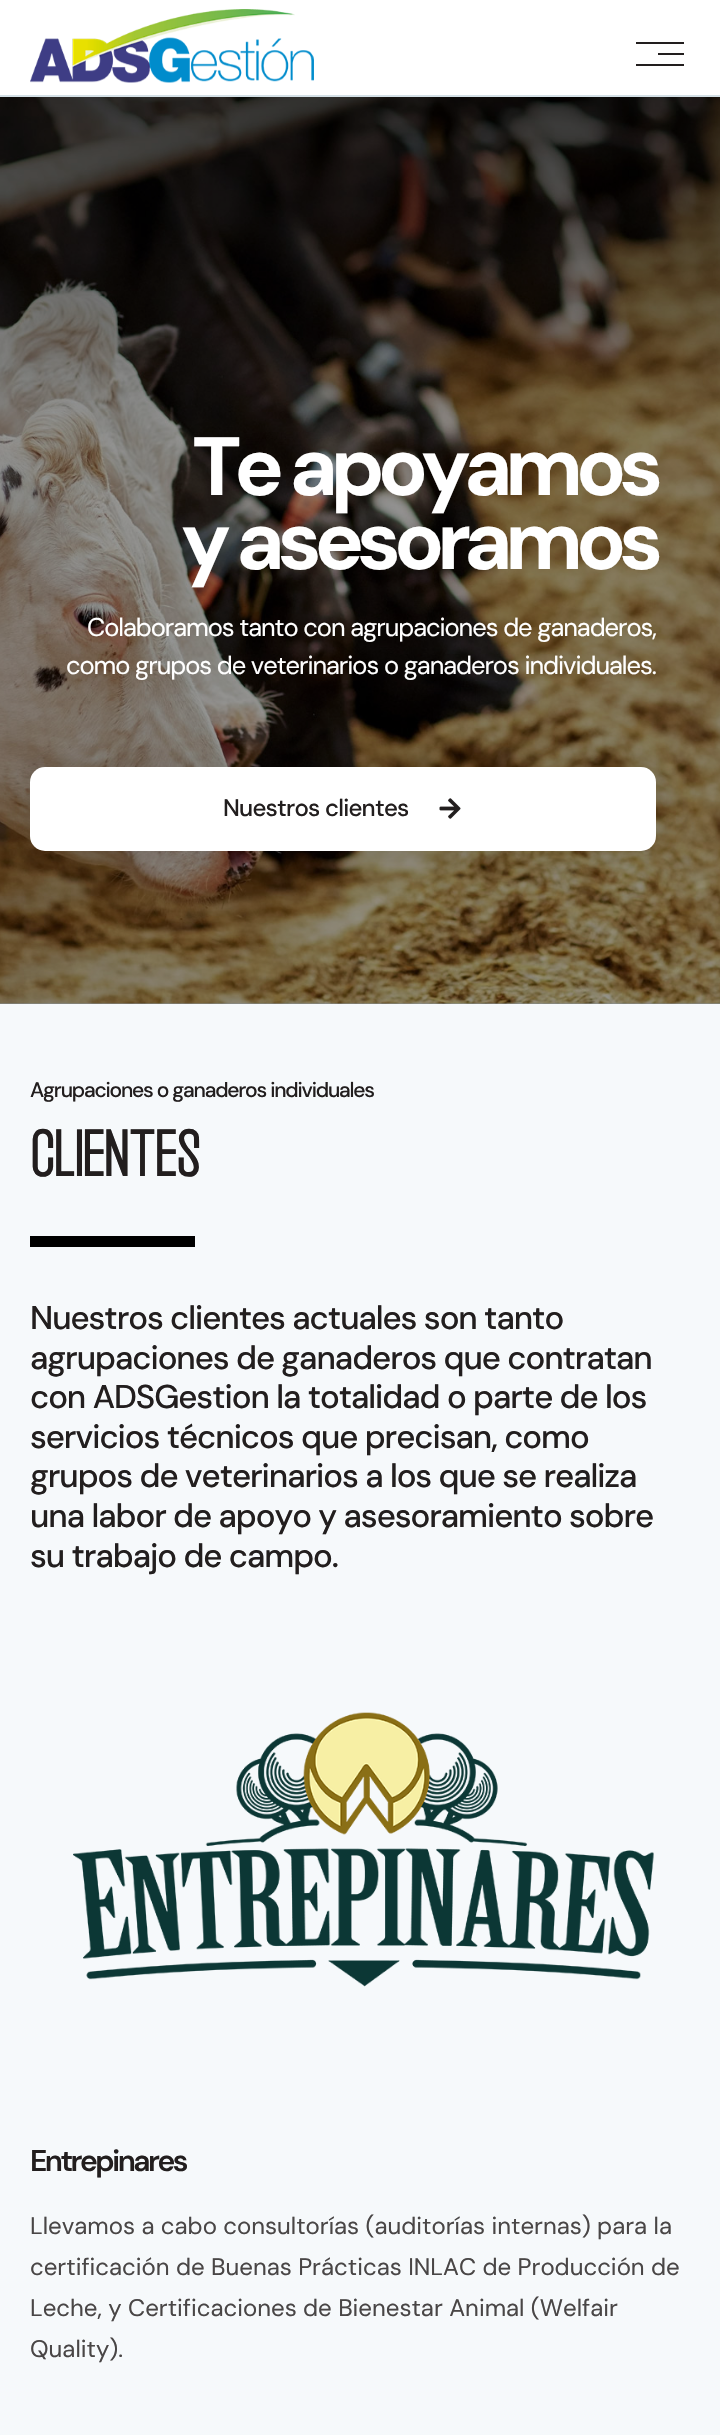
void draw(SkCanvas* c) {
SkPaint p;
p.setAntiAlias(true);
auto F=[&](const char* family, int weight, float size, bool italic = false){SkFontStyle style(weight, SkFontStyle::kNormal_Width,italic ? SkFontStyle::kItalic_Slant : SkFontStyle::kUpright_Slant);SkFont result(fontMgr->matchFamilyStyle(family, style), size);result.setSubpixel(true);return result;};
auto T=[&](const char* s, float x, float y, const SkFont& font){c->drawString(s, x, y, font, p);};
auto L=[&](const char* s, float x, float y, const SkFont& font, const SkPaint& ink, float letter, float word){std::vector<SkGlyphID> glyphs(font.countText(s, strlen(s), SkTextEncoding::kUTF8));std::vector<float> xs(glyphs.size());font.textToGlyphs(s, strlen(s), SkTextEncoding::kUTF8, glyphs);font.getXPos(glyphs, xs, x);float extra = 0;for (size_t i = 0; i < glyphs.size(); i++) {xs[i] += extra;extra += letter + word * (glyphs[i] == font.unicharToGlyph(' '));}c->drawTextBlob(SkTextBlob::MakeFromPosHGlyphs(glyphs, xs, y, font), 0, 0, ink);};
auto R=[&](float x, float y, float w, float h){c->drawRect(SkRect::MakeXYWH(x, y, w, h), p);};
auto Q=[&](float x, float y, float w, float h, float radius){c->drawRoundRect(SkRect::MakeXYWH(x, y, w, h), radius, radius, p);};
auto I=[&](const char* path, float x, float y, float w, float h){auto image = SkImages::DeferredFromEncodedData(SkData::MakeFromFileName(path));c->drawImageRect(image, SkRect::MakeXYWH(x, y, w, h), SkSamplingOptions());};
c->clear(0xffffffff);
p.setColor(0xffd4e0e6);
R(0,95,720,2);
I("1.png",30,9,284,74);
p.setColor(0xff221e1e);
R(636,42,48,2);
R(658,53,26,2);
R(636,64,48,2);
p.setColor(0xff878f94);
R(0,1003,720,1);
I("2.png",0,97,720,907);
auto f1 = F("DM Sans",700,82.5);
p.setColor(0xffffffff);
L("Te apoyamos",192,495,f1,p,-7,0);
L("y asesoramos",181,569,f1,p,-7,0);
auto f2 = F("DM Sans",400,25.5);
L("Colaboramos tanto con agrupaciones de ganaderos,",87,636,f2,p,-1.05,0);
L("como grupos de veterinarios o ganaderos individuales.",66,674,f2,p,-1.05,0);
p.setColor(0x12000000);
p.setMaskFilter(SkMaskFilter::MakeBlur(kNormal_SkBlurStyle, 15));
c->drawRoundRect(SkRect::MakeXYWH(21,758,644,102),24,24,p);
p.setMaskFilter(nullptr);
p.setColor(0xffffffff);
Q(30,767,626,84,15);
auto f3 = F("DM Sans",500,24);
p.setColor(0xff221e1e);
L("Nuestros clientes",223,816,f3,p,-.75,0);
I("3.png",439,798,22,21);
p.setColor(0xfff6f9fb);
R(0,1004,720,1431);
auto f4 = F("DM Sans",500,21);
p.setColor(0xff221e1e);
L("Agrupaciones o ganaderos individuales",30,1097,f4,p,-1.2,0);
auto f5 = F("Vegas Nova",900,69);
L("CLIENTES",30,1176,f5,p,-2.5,0);
p.setColor(0xff000000);
R(30,1236,165,11);
auto f6 = F("DM Sans",500,33);
p.setColor(0xff221e1e);
L("Nuestros clientes actuales son tanto",30,1329,f6,p,-1.05,0);
L("agrupaciones de ganaderos que contratan",30,1369,f6,p,-1.05,0);
L("con ADSGestion la totalidad o parte de los",30,1408,f6,p,-1.05,0);
L("servicios técnicos que precisan, como",30,1448,f6,p,-1.05,0);
L("grupos de veterinarios a los que se realiza",30,1487,f6,p,-1.05,0);
L("una labor de apoyo y asesoramiento sobre",30,1527,f6,p,-1.05,0);
L("su trabajo de campo.",30,1567,f6,p,-1.05,0);
I("4.png",73,1712,581,275);
auto f7 = F("DM Sans",600,30);
L("Entrepinares",30,2171,f7,p,-2.5,0);
auto f8 = F("DM Sans",400,24);
p.setColor(0xff494646);
T("Llevamos a cabo consultorías (auditorías internas) para la",30,2234,f8);
T("certificación de Buenas Prácticas INLAC de Producción de",30,2275,f8);
T("Leche, y Certificaciones de Bienestar Animal (Welfair",30,2316,f8);
T("Quality).",30,2357,f8);
}
